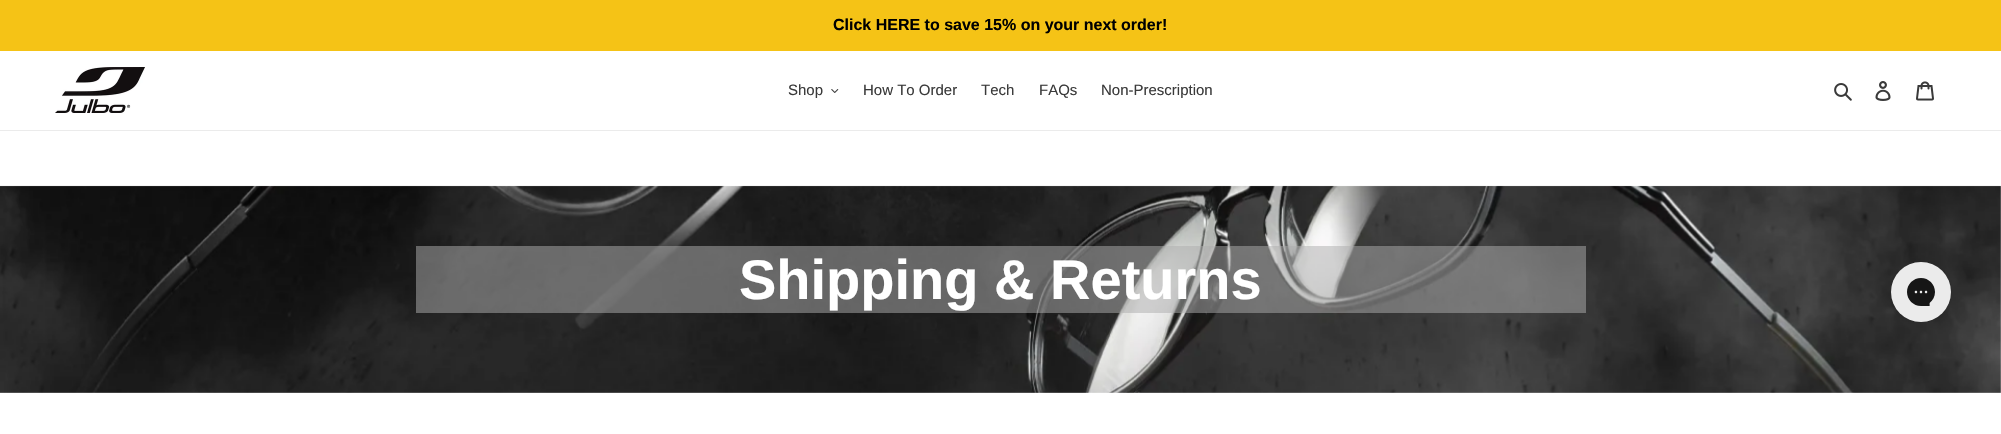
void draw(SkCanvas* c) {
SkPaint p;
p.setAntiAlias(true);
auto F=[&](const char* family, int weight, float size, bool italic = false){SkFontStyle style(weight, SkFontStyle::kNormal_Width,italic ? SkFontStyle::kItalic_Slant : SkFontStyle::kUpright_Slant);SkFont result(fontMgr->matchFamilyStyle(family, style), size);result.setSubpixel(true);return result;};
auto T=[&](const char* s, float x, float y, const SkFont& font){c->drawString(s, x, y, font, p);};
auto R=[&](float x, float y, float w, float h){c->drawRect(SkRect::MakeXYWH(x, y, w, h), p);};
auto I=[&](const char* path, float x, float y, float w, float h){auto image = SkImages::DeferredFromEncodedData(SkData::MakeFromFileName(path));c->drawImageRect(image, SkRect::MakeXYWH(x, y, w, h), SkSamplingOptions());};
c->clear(0xffffffff);
p.setColor(0xfff5c316);
R(0,0,2001,51);
auto f1 = F("Liberation Sans",700,16);
p.setColor(0xff000000);
T("Click HERE to save 15% on your next order!",833,30,f1);
p.setColor(0xffebebeb);
R(0,130,2001,1);
I("1.png",55,67,90,46);
auto f2 = F("Liberation Sans",400,15);
p.setColor(0xff3a3a3a);
T("Shop",788,95,f2);
I("2.png",831,89,8,4);
T("How To Order",863,95,f2);
T("Tech",981,95,f2);
T("FAQs",1039,95,f2);
T("Non-Prescription",1101,95,f2);
I("3.png",1834,83,18,18);
I("4.png",1875,81,16,20);
I("5.png",1916,81,18,20);
I("6.png",0,185,2001,208);
p.setColor(0x82adadad);
R(416,246,1170,67);
auto f3 = F("Liberation Sans",700,56);
p.setColor(0xffffffff);
T("Shipping & Returns",739,299,f3);
I("7.png",1891,262,60,60);
}
